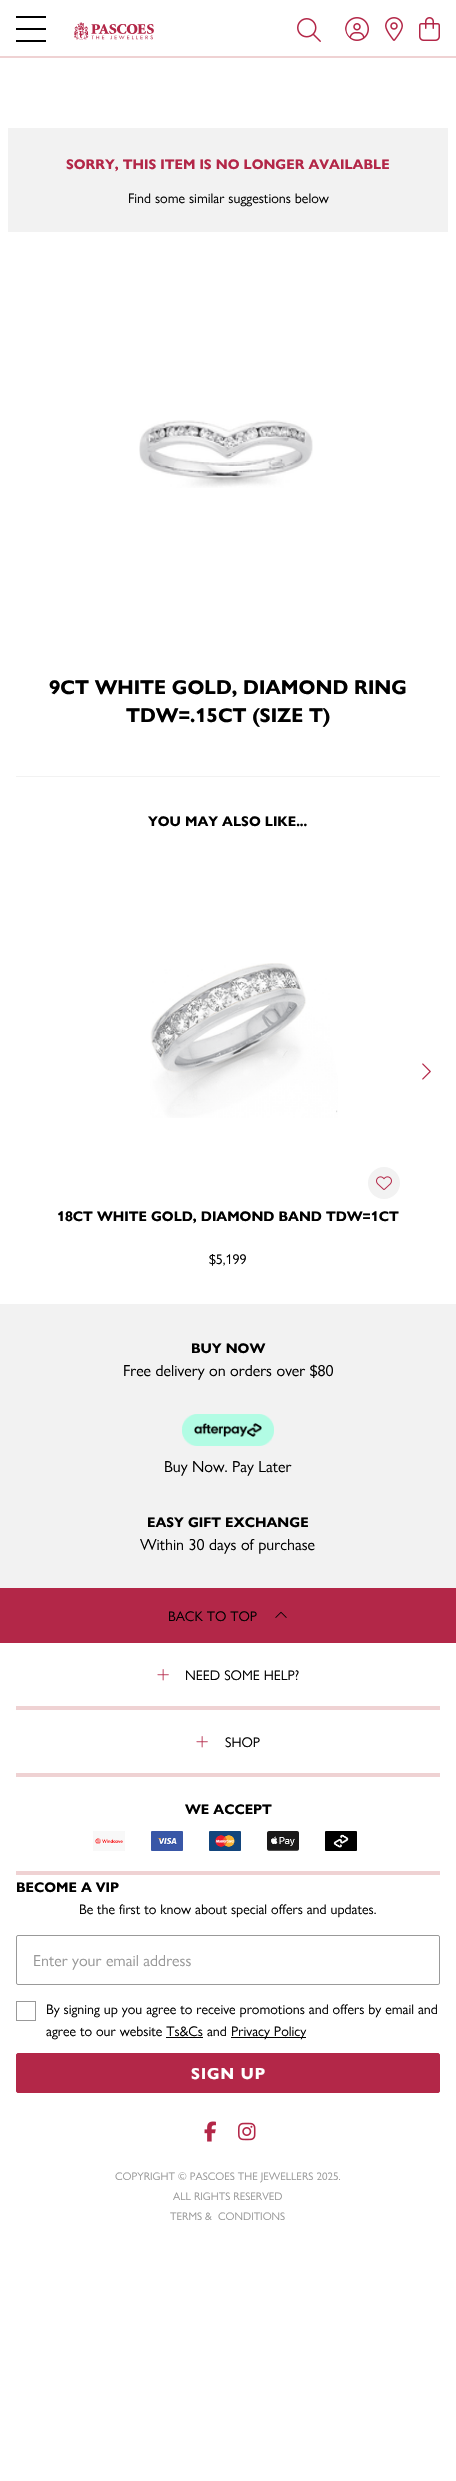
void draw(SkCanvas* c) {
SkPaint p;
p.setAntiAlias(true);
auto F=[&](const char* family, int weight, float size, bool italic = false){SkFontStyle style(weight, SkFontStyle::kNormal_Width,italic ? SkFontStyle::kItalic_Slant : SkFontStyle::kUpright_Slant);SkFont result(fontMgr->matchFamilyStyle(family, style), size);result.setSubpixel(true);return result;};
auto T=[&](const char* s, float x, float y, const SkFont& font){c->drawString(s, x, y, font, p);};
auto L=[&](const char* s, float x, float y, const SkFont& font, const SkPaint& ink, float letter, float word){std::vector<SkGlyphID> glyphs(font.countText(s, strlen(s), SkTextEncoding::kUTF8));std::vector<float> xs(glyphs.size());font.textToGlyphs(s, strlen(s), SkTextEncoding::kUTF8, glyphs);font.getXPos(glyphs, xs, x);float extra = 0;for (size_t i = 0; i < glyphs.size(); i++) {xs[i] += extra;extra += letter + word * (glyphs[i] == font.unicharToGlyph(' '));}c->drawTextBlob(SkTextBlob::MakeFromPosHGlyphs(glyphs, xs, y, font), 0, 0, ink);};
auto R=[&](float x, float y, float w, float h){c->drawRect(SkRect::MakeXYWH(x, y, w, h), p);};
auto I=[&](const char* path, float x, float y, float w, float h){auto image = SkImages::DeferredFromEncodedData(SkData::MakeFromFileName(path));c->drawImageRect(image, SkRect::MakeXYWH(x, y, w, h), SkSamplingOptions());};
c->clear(0xffffffff);
p.setColor(0xffefd2d3);
R(0,56,456,2);
p.setColor(0xff000000);
R(16,16,30,2);
R(16,28,30,2);
R(16,40,30,2);
I("1.png",74,22,80,18);
I("2.png",297,18,24,24);
I("3.png",345,17,24,24);
I("4.png",385,17,18,24);
I("5.png",419,17,21,24);
p.setColor(0xfff2f2f2);
R(8,128,440,104);
auto f1 = F("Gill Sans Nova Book",700,14);
p.setColor(0xffb32748);
T("SORRY, THIS ITEM IS NO LONGER AVAILABLE",66,169,f1);
auto f2 = F("Gill Sans Nova Book",400,14);
p.setColor(0xff000000);
T("Find some similar suggestions below",128,203,f2);
I("6.png",139,420,174,68);
auto f3 = F("Gill Sans Nova Book",700,20);
T("9CT WHITE GOLD, DIAMOND RING",49,694,f3);
T("TDW=.15CT (SIZE T)",126,722,f3);
p.setColor(0xfff2f2f2);
R(16,776,424,1);
p.setColor(0xff000000);
T("YOU MAY ALSO LIKE...",148,826,f1);
I("7.png",422,1063,9,17);
I("8.png",150,963,188,155);
p.setColor(0xfff2f2f2);
c->drawCircle(384,1183,16,p);
I("9.png",376,1176,16,14);
p.setColor(0xff000000);
T("18CT WHITE GOLD, DIAMOND BAND TDW=1CT",57,1221,f1);
T("$5,199",209,1264,f2);
p.setColor(0xfff2f2f2);
R(0,1304,456,284);
p.setColor(0xff000000);
T("BUY NOW",191,1353,f1);
auto f4 = F("Gill Sans Nova Book",400,16);
T("Free delivery on orders over $80",123,1376,f4);
I("10.png",182,1414,92,32);
T("Buy Now. Pay Later",164,1472,f4);
T("EASY GIFT EXCHANGE",147,1527,f1);
T("Within 30 days of purchase",140,1550,f4);
p.setColor(0xffb32748);
R(0,1588,456,55);
p.setColor(0xff000000);
T("BACK TO TOP",168,1621,f2);
I("11.png",275,1611,12,7);
p.setColor(0xffefd2d3);
R(16,1706,424,4);
I("12.png",157,1669,12,12);
p.setColor(0xff000000);
T("NEED SOME HELP?",185,1680,f2);
p.setColor(0xffefd2d3);
R(16,1773,424,4);
I("12.png",196,1736,12,12);
p.setColor(0xff000000);
T("SHOP",225,1747,f2);
p.setColor(0xffefd2d3);
R(16,1871,424,4);
p.setColor(0xff000000);
T("WE ACCEPT",185,1814,f1);
I("13.png",93,1831,32,20);
I("14.png",151,1831,32,20);
I("15.png",209,1831,32,20);
I("16.png",267,1831,32,20);
I("17.png",325,1831,32,20);
T("BECOME A VIP",16,1892,f1);
T("Be the first to know about special offers and updates.",79,1914,f2);
p.setStroke(true);
p.setStrokeWidth(1);
p.setColor(0xff999999);
c->drawRoundRect(SkRect::MakeXYWH(16.5,1935.5,423,49),1.5,1.5,p);
p.setStroke(false);
T("Enter your email address",33,1966,f4);
p.setStroke(true);
c->drawRect(SkRect::MakeXYWH(16.5,2001.5,19,19),p);
p.setStroke(false);
p.setColor(0xff000000);
T("By signing up you agree to receive promotions and offers by email and",46,2014,f2);
T("agree to our website Ts&Cs and",46,2036,f2);
R(231,2037,75,1);
T("Privacy Policy",231,2036,f2);
R(166,2037,37,1);
p.setColor(0xffb32748);
c->drawRoundRect(SkRect::MakeXYWH(16.5,2053.5,423,39),1.5,1.5,p);
p.setStroke(true);
c->drawRoundRect(SkRect::MakeXYWH(16.5,2053.5,423,39),1.5,1.5,p);
auto f5 = F("Gill Sans Nova Book",700,16);
p.setStroke(false);
p.setColor(0xffffffff);
L("SIGN UP",191,2079,f5,p,1,0);
I("18.png",204,2121,12,21);
I("19.png",238,2122,18,19);
auto f6 = F("Gill Sans Nova Book",400,11);
p.setColor(0xff999999);
T("COPYRIGHT © PASCOES THE JEWELLERS 2025.",115,2180,f6);
T("ALL RIGHTS RESERVED",173,2200,f6);
T("TERMS &  CONDITIONS",170,2220,f6);
}
